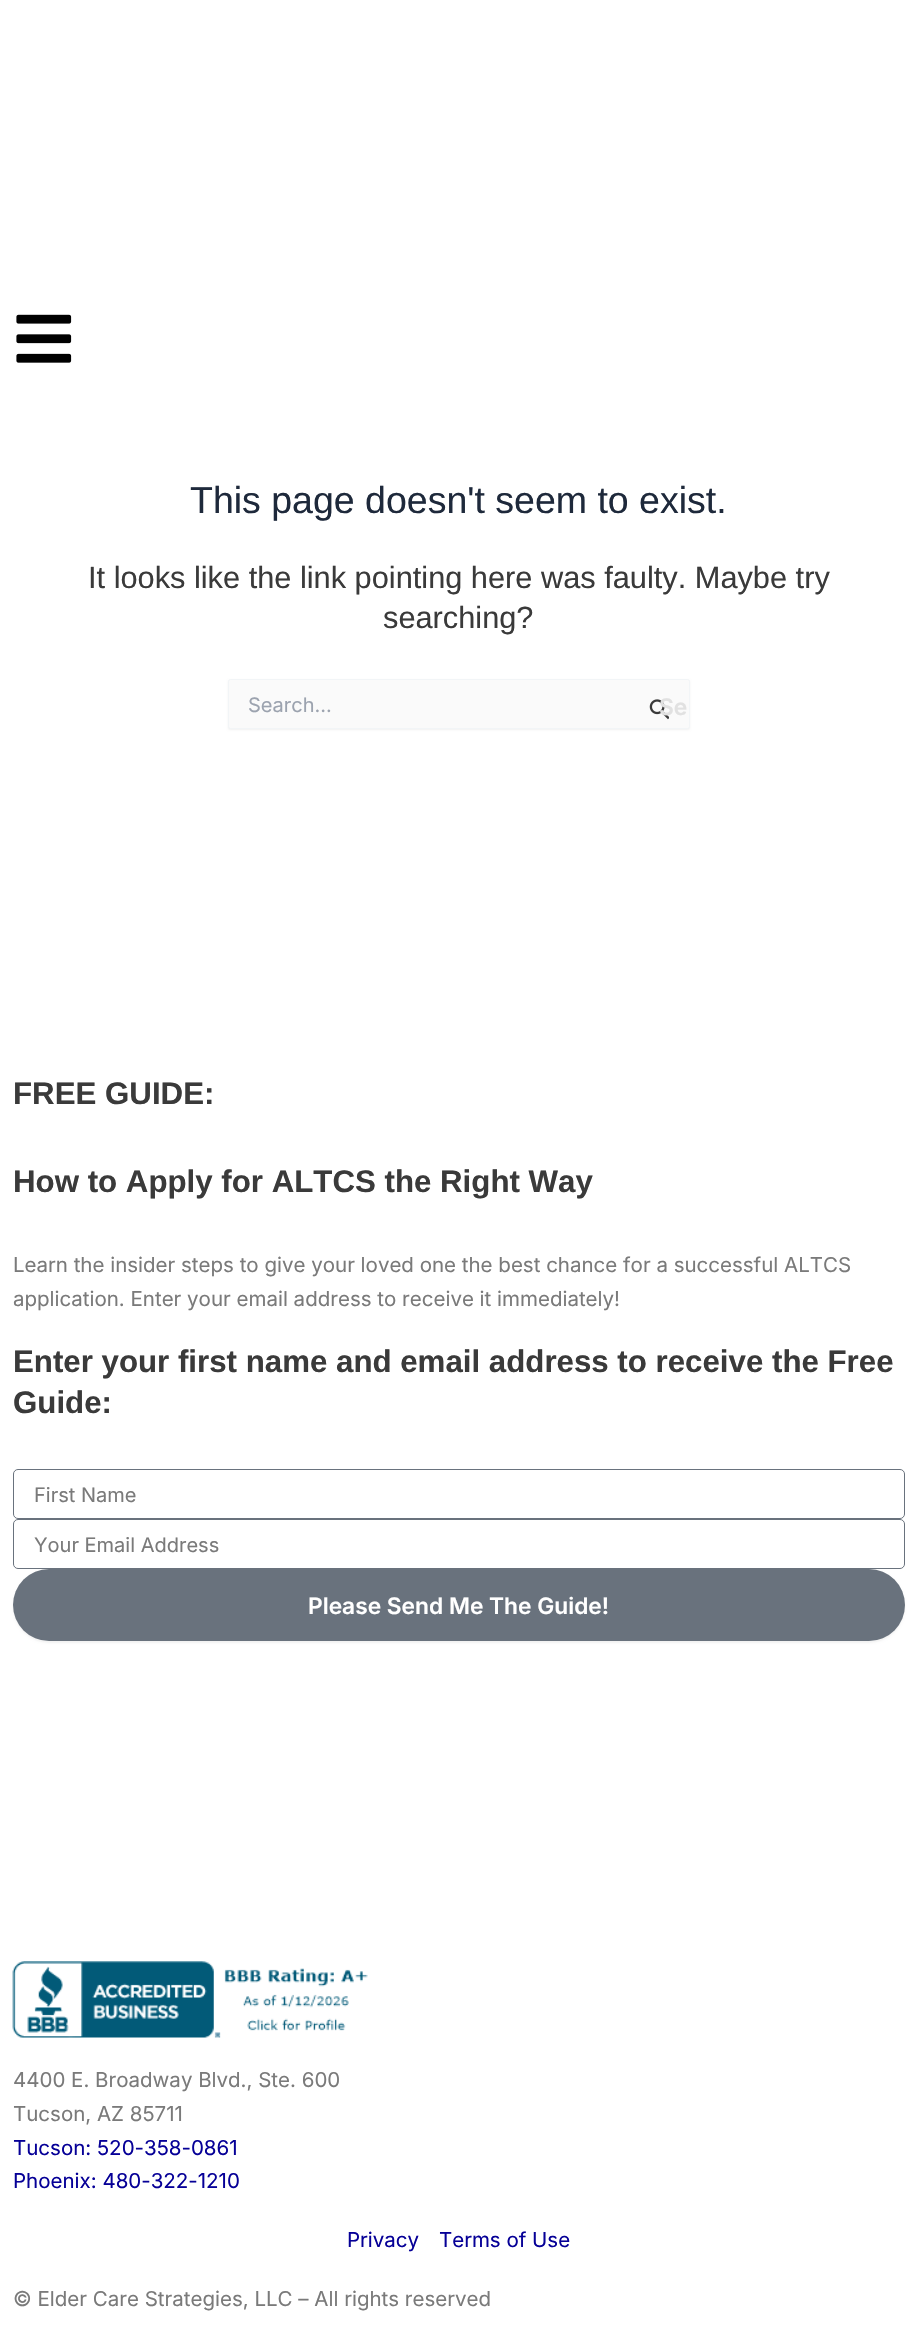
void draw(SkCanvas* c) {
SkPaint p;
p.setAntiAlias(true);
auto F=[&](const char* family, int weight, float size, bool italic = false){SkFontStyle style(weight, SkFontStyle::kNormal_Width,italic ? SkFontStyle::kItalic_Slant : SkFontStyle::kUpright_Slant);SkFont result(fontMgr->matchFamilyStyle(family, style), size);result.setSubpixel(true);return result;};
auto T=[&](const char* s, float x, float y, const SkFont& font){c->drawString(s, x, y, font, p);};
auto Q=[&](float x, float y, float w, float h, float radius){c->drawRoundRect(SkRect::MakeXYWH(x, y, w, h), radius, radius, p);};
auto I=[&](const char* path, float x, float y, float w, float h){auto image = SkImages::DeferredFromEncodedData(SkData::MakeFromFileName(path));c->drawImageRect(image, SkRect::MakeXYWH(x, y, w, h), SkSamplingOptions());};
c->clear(0xffffffff);
I("1.png",16,314,56,49);
auto f1 = F("Liberation Sans",400,37.5);
p.setColor(0xff1e293b);
T("This page doesn't seem to exist.",190,513,f1);
auto f2 = F("Liberation Sans",400,30.75);
p.setColor(0xff3a3a3a);
T("It looks like the link pointing here was faulty. Maybe try",88,588,f2);
T("searching?",383,628,f2);
p.setColor(0x0d000000);
p.setMaskFilter(SkMaskFilter::MakeBlur(kNormal_SkBlurStyle, 1));
c->drawRoundRect(SkRect::MakeXYWH(228,680,462,50),2.5,2.5,p);
p.setMaskFilter(nullptr);
p.setColor(0xfffafafa);
c->drawRoundRect(SkRect::MakeXYWH(228.5,679.5,461,49),2,2,p);
p.setStroke(true);
p.setStrokeWidth(1);
p.setColor(0xfff2f5f7);
c->drawRoundRect(SkRect::MakeXYWH(228.5,679.5,461,49),2,2,p);
auto f3 = F("Inter",400,20);
p.setStroke(false);
p.setColor(0xff9ca3af);
T("Search...",248,712,f3);
I("2.png",649,699,20,21);
auto f4 = F("Inter",600,22.75);
p.setColor(0xffe1e1e1);
T("Se",659,715,f4);
auto f5 = F("Liberation Sans",700,31.25);
p.setColor(0xff3a3a3a);
T("FREE GUIDE:",13,1104,f5);
T("How to Apply for ALTCS the Right Way",13,1192,f5);
auto f6 = F("Inter",400,20.5);
p.setColor(0xff7a7a7a);
T("Learn the insider steps to give your loved one the best chance for a successful ALTCS",13,1272,f6);
T("application. Enter your email address to receive it immediately!",13,1306,f6);
p.setColor(0xff3a3a3a);
T("Enter your first name and email address to receive the Free",13,1372,f5);
T("Guide:",13,1413,f5);
p.setStroke(true);
p.setColor(0xff69727d);
c->drawRoundRect(SkRect::MakeXYWH(13.5,1469.5,891,49),4.5,4.5,p);
p.setStroke(false);
p.setColor(0xff7a7a7a);
T("First Name",34,1502,f3);
p.setStroke(true);
p.setColor(0xff69727d);
c->drawRoundRect(SkRect::MakeXYWH(13.5,1519.5,891,49),4.5,4.5,p);
p.setStroke(false);
p.setColor(0xff7a7a7a);
T("Your Email Address",34,1552,f3);
p.setColor(0x0d000000);
p.setMaskFilter(SkMaskFilter::MakeBlur(kNormal_SkBlurStyle, 1));
c->drawRoundRect(SkRect::MakeXYWH(13,1570,892,73),36.5,36.5,p);
p.setMaskFilter(nullptr);
p.setColor(0xff69727d);
Q(13,1569,892,72,36);
p.setColor(0xffffffff);
T("Please Send Me The Guide!",308,1614,f4);
I("3.png",12,1961,356,77);
p.setColor(0xff7a7a7a);
T("4400 E. Broadway Blvd., Ste. 600",13,2087,f6);
T("Tucson, AZ 85711",13,2121,f6);
p.setColor(0xff060097);
T("Tucson: 520-358-0861",13,2155,f6);
T("Phoenix: 480-322-1210",13,2188,f6);
T("Privacy",347,2247,f6);
T("Terms of Use",439,2247,f6);
p.setColor(0xff7a7a7a);
T("© Elder Care Strategies, LLC – All rights reserved",13,2306,f6);
}
